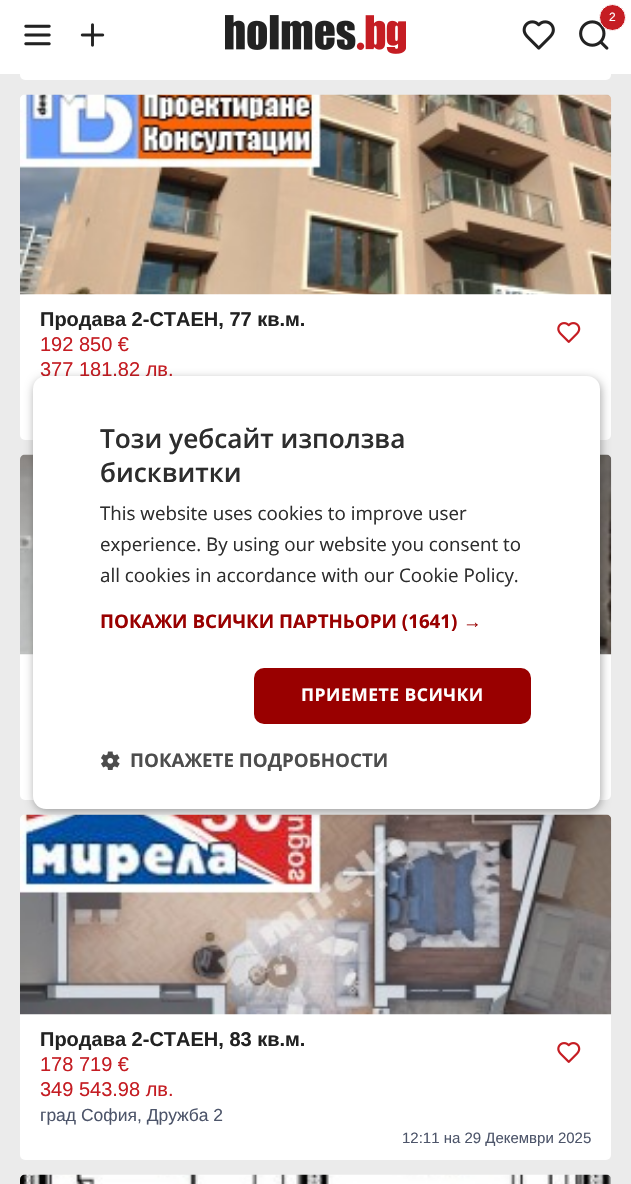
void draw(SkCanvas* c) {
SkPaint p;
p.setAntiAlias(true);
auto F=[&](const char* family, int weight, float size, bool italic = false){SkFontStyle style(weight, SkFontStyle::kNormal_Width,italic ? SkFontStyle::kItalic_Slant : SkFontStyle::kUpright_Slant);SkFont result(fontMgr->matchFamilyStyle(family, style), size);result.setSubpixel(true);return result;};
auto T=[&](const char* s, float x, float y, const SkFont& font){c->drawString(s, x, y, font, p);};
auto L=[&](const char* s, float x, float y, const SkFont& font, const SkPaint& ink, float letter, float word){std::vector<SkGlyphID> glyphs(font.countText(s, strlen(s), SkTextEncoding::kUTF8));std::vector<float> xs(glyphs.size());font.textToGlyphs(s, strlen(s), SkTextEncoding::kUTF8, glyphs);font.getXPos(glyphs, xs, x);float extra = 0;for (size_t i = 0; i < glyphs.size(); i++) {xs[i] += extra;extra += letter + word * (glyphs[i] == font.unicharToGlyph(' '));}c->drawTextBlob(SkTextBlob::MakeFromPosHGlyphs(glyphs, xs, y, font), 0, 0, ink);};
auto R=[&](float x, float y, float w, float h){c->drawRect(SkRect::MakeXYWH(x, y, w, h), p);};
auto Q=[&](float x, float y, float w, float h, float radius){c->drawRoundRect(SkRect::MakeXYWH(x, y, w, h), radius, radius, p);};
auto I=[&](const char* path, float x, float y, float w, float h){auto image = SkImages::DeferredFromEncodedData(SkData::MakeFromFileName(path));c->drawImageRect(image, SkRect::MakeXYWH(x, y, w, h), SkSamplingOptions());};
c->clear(0xffebebeb);
p.setColor(0xffffffff);
Q(20,-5,591,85,5);
R(0,0,631,74);
I("1.png",24,24,27,22);
I("2.png",80,23,25,24);
I("3.png",225,15,181,39);
I("4.png",579,20,30,30);
p.setColor(0xffc51d23);
c->drawCircle(612.5,17.5,13,p);
p.setStroke(true);
p.setStrokeWidth(1);
p.setColor(0xffffffff);
c->drawCircle(612.5,17.5,13,p);
auto f1 = F("Liberation Sans",400,12);
p.setStroke(false);
T("2",609,21,f1);
I("5.png",522,20,33,30);
Q(20,95,591,345,5);
I("6.png",20,94,592,201);
c->save();
c->clipRect(SkRect::MakeXYWH(40,310,496,20));
auto f2 = F("Liberation Sans",700,20);
p.setColor(0xff222222);
T("Продава 2-СТАЕН, 77 кв.м.",40,326,f2);
c->restore();
auto f3 = F("Liberation Sans",400,20);
p.setColor(0xffc51d23);
T("192 850 €",40,351,f3);
T("377 181.82 лв.",40,376,f3);
I("7.png",557,322,24,21);
p.setColor(0xffffffff);
Q(20,455,591,345,5);
I("8.png",20,454,592,201);
Q(20,815,591,345,5);
I("9.png",20,814,592,201);
c->save();
c->clipRect(SkRect::MakeXYWH(40,1030,496,20));
p.setColor(0xff222222);
T("Продава 2-СТАЕН, 83 кв.м.",40,1046,f2);
c->restore();
p.setColor(0xffc51d23);
T("178 719 €",40,1071,f3);
T("349 543.98 лв.",40,1096,f3);
auto f4 = F("Liberation Sans",400,17.5);
p.setColor(0xff4d556a);
T("град София, Дружба 2",40,1121,f4);
I("7.png",557,1042,24,21);
auto f5 = F("Liberation Sans",400,15);
T("12:11 на 29 Декември 2025",402,1143,f5);
I("10.png",20,1174,591,10);
p.setColor(0x59000000);
p.setMaskFilter(SkMaskFilter::MakeBlur(kNormal_SkBlurStyle, 5));
c->drawRoundRect(SkRect::MakeXYWH(34,379,567,432),13,13,p);
p.setMaskFilter(nullptr);
p.setColor(0xffffffff);
Q(33,376,567,433,13);
auto f6 = F("Open Sans",600,26.25);
p.setColor(0xff2d2d2d);
T("Този уебсайт използва",100,448,f6);
T("бисквитки",100,482,f6);
auto f7 = F("Open Sans",400,18.75);
T("This website uses cookies to improve user",100,520,f7);
T("experience. By using our website you consent to",100,551,f7);
T("all cookies in accordance with our Cookie Policy.",100,582,f7);
auto f8 = F("Open Sans",700,18.75);
p.setColor(0xff990000);
T("ПОКАЖИ ВСИЧКИ ПАРТНЬОРИ (1641)",100,628,f8);
auto f9 = F("Liberation Sans",700,18.75);
T("→",463,628,f9);
Q(254,668,277,56,10);
auto f10 = F("Open Sans",700,17.5);
p.setColor(0xffffffff);
L("ПРИЕМЕТЕ ВСИЧКИ",301,701,f10,p,.5,0);
I("11.png",101,751,19,19);
p.setColor(0xff4d4d4d);
T("ПОКАЖЕТЕ ПОДРОБНОСТИ",130,767,f8);
}
